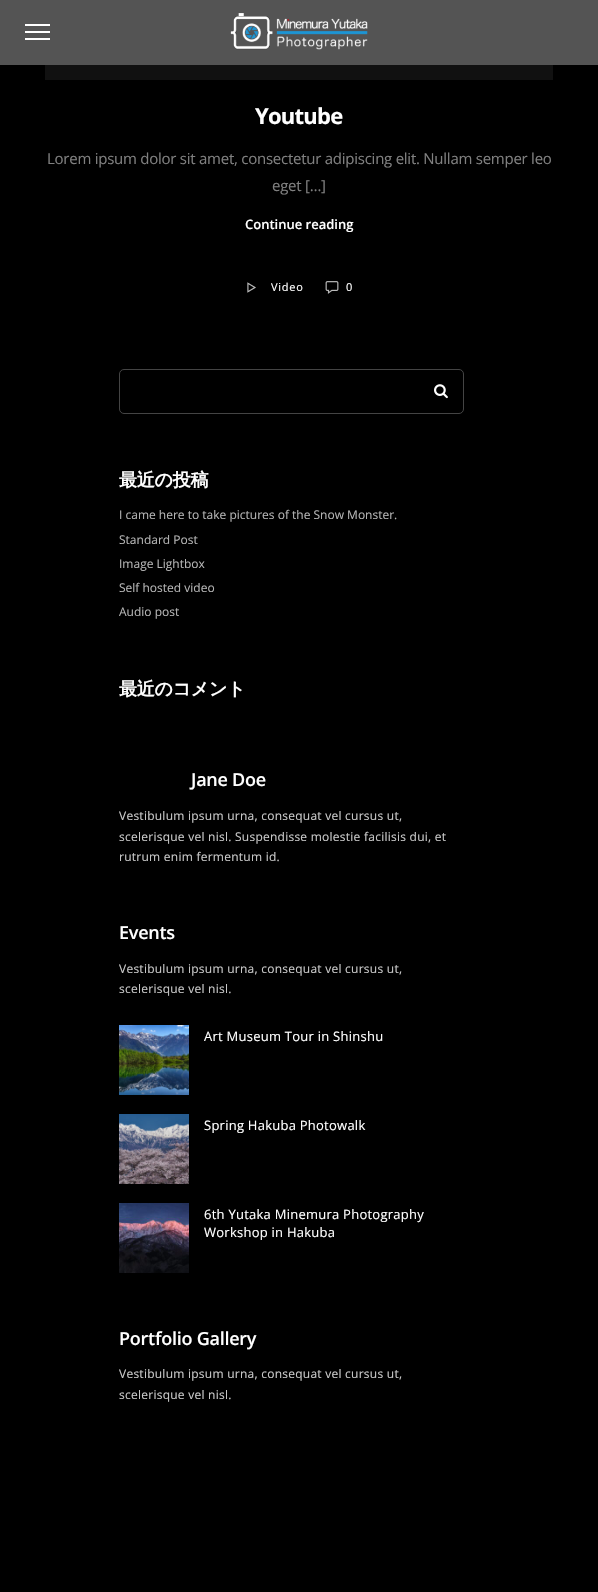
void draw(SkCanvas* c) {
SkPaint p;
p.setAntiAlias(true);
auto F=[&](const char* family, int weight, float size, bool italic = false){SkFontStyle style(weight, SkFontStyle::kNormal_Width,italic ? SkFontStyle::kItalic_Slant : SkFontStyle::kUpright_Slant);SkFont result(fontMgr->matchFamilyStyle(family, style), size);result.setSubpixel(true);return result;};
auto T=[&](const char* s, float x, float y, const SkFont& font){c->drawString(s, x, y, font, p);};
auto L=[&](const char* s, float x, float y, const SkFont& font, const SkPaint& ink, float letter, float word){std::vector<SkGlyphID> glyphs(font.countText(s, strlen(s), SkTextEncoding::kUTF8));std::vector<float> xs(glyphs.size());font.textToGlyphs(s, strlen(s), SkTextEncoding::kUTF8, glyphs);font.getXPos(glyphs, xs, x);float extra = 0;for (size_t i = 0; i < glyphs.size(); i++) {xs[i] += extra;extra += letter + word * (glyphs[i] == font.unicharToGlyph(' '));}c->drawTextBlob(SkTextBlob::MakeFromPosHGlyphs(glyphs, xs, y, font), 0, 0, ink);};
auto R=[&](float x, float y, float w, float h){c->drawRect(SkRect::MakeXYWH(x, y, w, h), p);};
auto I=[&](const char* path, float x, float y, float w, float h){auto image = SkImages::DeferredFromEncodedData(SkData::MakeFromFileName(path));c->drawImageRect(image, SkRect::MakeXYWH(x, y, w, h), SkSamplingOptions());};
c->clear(0xff000000);
p.setColor(0xff545454);
R(0,0,598,65);
I("1.png",230,13,138,37);
p.setColor(0xffffffff);
R(25,31,25,2);
R(25,24,25,2);
R(25,38,25,2);
p.setColor(0xff111111);
R(45,65,508,15);
auto f1 = F("Open Sans",700,22);
p.setColor(0xffffffff);
L("Youtube",255,124,f1,p,-.75,0);
auto f2 = F("Open Sans",400,15);
p.setColor(0xff808080);
L("Lorem ipsum dolor sit amet, consectetur adipiscing elit. Nullam semper leo",47,164,f2,p,-.25,0);
L("eget […]",272,191,f2,p,-.25,0);
auto f3 = F("Open Sans",600,13);
p.setColor(0xffffffff);
T("Continue reading",245,229,f3);
I("2.png",247,282,9,11);
auto f4 = F("Open Sans",400,11);
L("Video",271,291,f4,p,.75,0);
I("3.png",325,281,14,13);
L("0",346,291,f4,p,.75,0);
p.setStroke(true);
p.setStrokeWidth(1);
p.setColor(0xff444444);
c->drawRoundRect(SkRect::MakeXYWH(119.5,369.5,344,44),4.5,4.5,p);
I("4.png",434,384,14,15);
auto f5 = F("WenQuanYi Zen Hei",700,18);
p.setStroke(false);
p.setColor(0xffffffff);
L("最近の投稿",119,486,f5,p,-.25,0);
auto f6 = F("Open Sans",400,12);
p.setColor(0xffb5b5b5);
T("I came here to take pictures of the Snow Monster.",119,519,f6);
T("Standard Post",119,544,f6);
T("Image Lightbox",119,568,f6);
T("Self hosted video",119,592,f6);
T("Audio post",119,616,f6);
p.setColor(0xffffffff);
L("最近のコメント",119,695,f5,p,-.25,0);
auto f7 = F("Open Sans",600,18);
L("Jane Doe",191,786,f7,p,-.25,0);
p.setColor(0xffc9c9c9);
L("Vestibulum ipsum urna, consequat vel cursus ut,",119,820,f6,p,.25,0);
L("scelerisque vel nisl. Suspendisse molestie facilisis dui, et",119,841,f6,p,.25,0);
L("rutrum enim fermentum id.",119,861,f6,p,.25,0);
p.setColor(0xffffffff);
L("Events",119,939,f7,p,-.25,0);
p.setColor(0xffc9c9c9);
L("Vestibulum ipsum urna, consequat vel cursus ut,",119,973,f6,p,.25,0);
L("scelerisque vel nisl.",119,993,f6,p,.25,0);
I("5.png",119,1025,70,70);
auto f8 = F("Open Sans",400,13);
p.setColor(0xffffffff);
L("Art Museum Tour in Shinshu",204,1041,f8,p,.25,0);
I("6.png",119,1114,70,70);
L("Spring Hakuba Photowalk",204,1130,f8,p,.25,0);
I("7.png",119,1203,70,70);
L("6th Yutaka Minemura Photography",204,1219,f8,p,.25,0);
L("Workshop in Hakuba",204,1237,f8,p,.25,0);
L("Portfolio Gallery",119,1345,f7,p,-.25,0);
p.setColor(0xffc9c9c9);
L("Vestibulum ipsum urna, consequat vel cursus ut,",119,1378,f6,p,.25,0);
L("scelerisque vel nisl.",119,1399,f6,p,.25,0);
}
